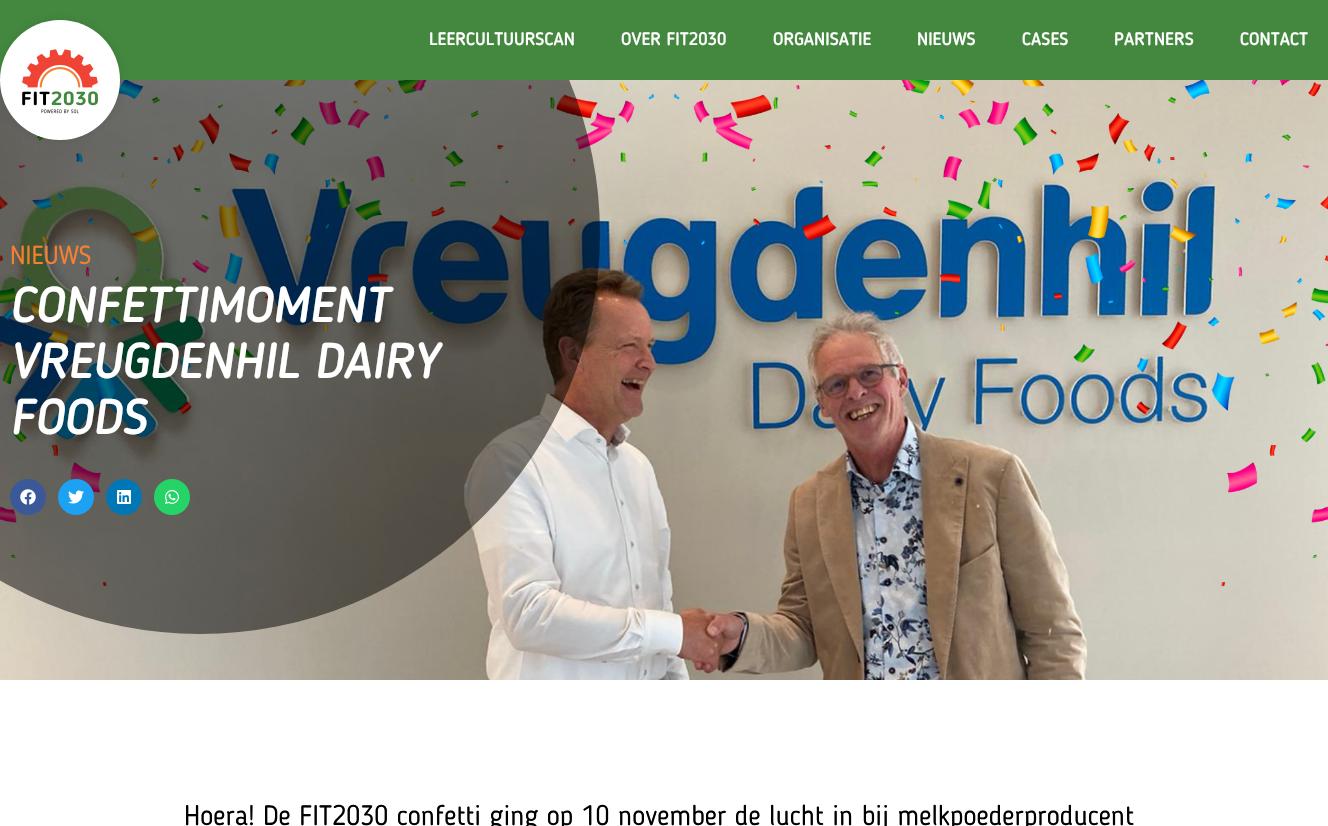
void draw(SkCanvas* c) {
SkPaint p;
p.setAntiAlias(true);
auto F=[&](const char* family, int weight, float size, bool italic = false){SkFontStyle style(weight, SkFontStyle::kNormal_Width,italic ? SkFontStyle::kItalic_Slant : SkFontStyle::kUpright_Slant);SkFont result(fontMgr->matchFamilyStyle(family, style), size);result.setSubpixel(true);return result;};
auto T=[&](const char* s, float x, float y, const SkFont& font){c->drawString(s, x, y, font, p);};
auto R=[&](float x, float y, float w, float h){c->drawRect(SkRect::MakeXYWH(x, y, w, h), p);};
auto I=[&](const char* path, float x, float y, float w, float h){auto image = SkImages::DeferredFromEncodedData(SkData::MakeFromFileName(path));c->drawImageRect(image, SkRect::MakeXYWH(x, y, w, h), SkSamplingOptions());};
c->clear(0xffffffff);
I("2.png",0,80,1328,600);
p.setColor(0x80000000);
c->drawCircle(200,234,400,p);
p.setColor(0xff448840);
R(0,0,1328,80);
p.setColor(0x1a000000);
p.setMaskFilter(SkMaskFilter::MakeBlur(kNormal_SkBlurStyle, 5));
c->drawRoundRect(SkRect::MakeXYWH(0,20,120,120),60,60,p);
p.setMaskFilter(nullptr);
p.setColor(0xffffffff);
c->drawCircle(60,80,60,p);
I("1.png",22,49,76,65);
auto f1 = F("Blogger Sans",500,18);
T("LEERCULTUURSCAN",429,45,f1);
T("OVER FIT2030",621,45,f1);
T("ORGANISATIE",773,45,f1);
T("NIEUWS",917,45,f1);
T("CASES",1022,45,f1);
T("PARTNERS",1114,45,f1);
T("CONTACT",1240,45,f1);
auto f2 = F("Blogger Sans",400,26);
p.setColor(0xfff5802f);
T("NIEUWS",10,264,f2);
auto f3 = F("Blogger Sans",500,50,true);
p.setColor(0xffffffff);
T("CONFETTIMOMENT",10,322,f3);
T("VREUGDENHIL DAIRY",10,378,f3);
T("FOODS",10,434,f3);
p.setColor(0xff3b5998);
c->drawCircle(28,497,18,p);
I("3.png",20,489,16,16);
p.setColor(0xff1da1f2);
c->drawCircle(76,497,18,p);
I("4.png",68,490,16,14);
p.setColor(0xff0077b5);
c->drawCircle(124,497,18,p);
I("5.png",117,490,14,14);
p.setColor(0xff25d366);
c->drawCircle(172,497,18,p);
I("6.png",165,490,14,14);
auto f4 = F("Blogger Sans",400,28);
p.setColor(0xff000000);
T("Hoera! De FIT2030 confetti ging op 10 november de lucht in bij melkpoederproducent",184,825,f4);
}
